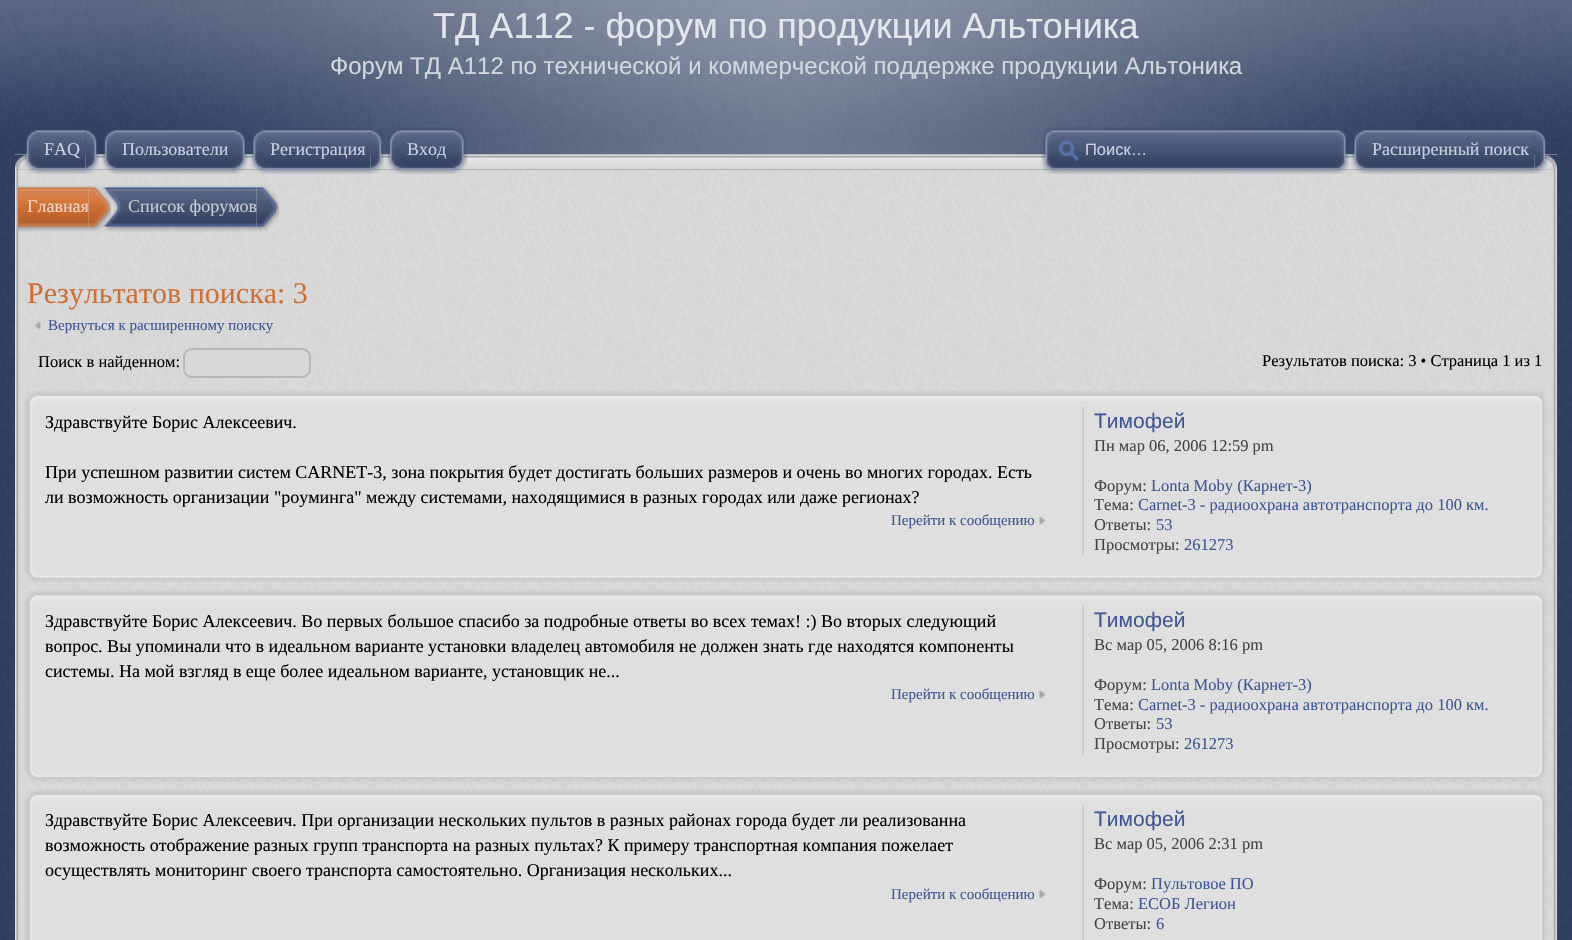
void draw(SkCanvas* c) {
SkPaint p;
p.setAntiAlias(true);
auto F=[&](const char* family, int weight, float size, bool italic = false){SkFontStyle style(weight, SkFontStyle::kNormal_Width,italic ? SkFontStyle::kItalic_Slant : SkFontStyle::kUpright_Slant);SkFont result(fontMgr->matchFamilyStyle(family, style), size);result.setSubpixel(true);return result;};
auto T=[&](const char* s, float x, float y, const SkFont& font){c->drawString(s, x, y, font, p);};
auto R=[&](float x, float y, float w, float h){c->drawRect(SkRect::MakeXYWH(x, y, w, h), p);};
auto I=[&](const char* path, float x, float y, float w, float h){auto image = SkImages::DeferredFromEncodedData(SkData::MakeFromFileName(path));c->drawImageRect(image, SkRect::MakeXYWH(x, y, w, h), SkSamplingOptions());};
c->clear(0xffffffff);
I("1.png",0,0,1572,940);
I("2.png",0,0,1572,155);
auto f1 = F("Liberation Sans",400,36);
p.setColor(0xffe5e6eb);
T("ТД А112 - форум по продукции Альтоника",433,38,f1);
auto f2 = F("Liberation Sans",400,24);
p.setColor(0xffd3d6dd);
T("Форум ТД А112 по технической и коммерческой поддержке продукции Альтоника",330,74,f2);
I("3.png",15,154,1542,16);
I("15.png",15,170,1542,770);
I("4.png",22,130,64,44);
I("5.png",85,130,16,44);
auto f3 = F("Liberation Serif",400,18);
p.setColor(0xffc8d0e2);
T("FAQ",44,155,f3);
I("6.png",100,130,134,44);
I("7.png",234,130,15,44);
T("Пользователи",122,155,f3);
I("8.png",249,128,122,46);
I("9.png",370,128,16,46);
T("Регистрация",270,155,f3);
I("10.png",385,127,68,47);
I("11.png",453,127,15,47);
T("Вход",407,155,f3);
I("12.png",1041,126,309,48);
auto f4 = F("Liberation Sans",400,16.5);
T("Поиск…",1085,155,f4);
I("13.png",1350,130,185,44);
I("14.png",1534,130,16,44);
T("Расширенный поиск",1372,155,f3);
I("16.png",88,185,23,47);
I("17.png",18,185,71,47);
p.setColor(0xfff0d4c3);
T("Главная",27,212,f3);
I("18.png",256,185,23,47);
I("19.png",102,185,155,47);
p.setColor(0xffc7cbd5);
T("Список форумов",128,212,f3);
auto f5 = F("Liberation Serif",400,30);
p.setColor(0xffce6f36);
T("Результатов поиска: 3",27,303,f5);
I("20.png",34,321,7,9);
auto f6 = F("Liberation Serif",400,15);
p.setColor(0xff3e5795);
T("Вернуться к расширенному поиску",48,330,f6);
auto f7 = F("Liberation Serif",400,16.5);
p.setColor(0xff000000);
T("Поиск в найденном:",38,367,f7);
p.setColor(0xffd8d8d8);
c->drawRoundRect(SkRect::MakeXYWH(184,349,126,28),8,8,p);
p.setStroke(true);
p.setStrokeWidth(2);
p.setColor(0xffb8b8b8);
c->drawRoundRect(SkRect::MakeXYWH(184,349,126,28),8,8,p);
p.setStroke(false);
p.setColor(0xff000000);
T("Результатов поиска: 3 • Страница 1 из 1",1262,366,f7);
p.setColor(0xffdfdfdf);
R(24,401,1524,183);
I("21.png",24,390,1524,194);
p.setColor(0xff000000);
T("Здравствуйте Борис Алексеевич.",45,428,f3);
T("При успешном развитии систем CARNET-3, зона покрытия будет достигать больших размеров и очень во многих городах. Есть",45,478,f3);
T("ли возможность организации \"роуминга\" между системами, находящимися в разных городах или даже регионах?",45,503,f3);
p.setColor(0xffcccccc);
R(1082,407,2,148);
auto f8 = F("Liberation Sans",400,21);
p.setColor(0xff3e5795);
T("Тимофей",1094,428,f8);
p.setColor(0xff444444);
T("Пн мар 06, 2006 12:59 pm",1094,451,f7);
T("Форум:",1094,491,f7);
p.setColor(0xff3e5795);
T("Lonta Moby (Карнет-3)",1151,491,f7);
p.setColor(0xff444444);
T("Тема:",1094,510,f7);
p.setColor(0xff3e5795);
T("Carnet-3 - радиоохрана автотранспорта до 100 км.",1138,510,f7);
p.setColor(0xff444444);
T("Ответы:",1094,530,f7);
p.setColor(0xff3e5795);
T("53",1156,530,f7);
p.setColor(0xff444444);
T("Просмотры:",1094,550,f7);
p.setColor(0xff3e5795);
T("261273",1184,550,f7);
T("Перейти к сообщению",891,525,f6);
I("22.png",1039,516,7,9);
p.setColor(0xffdfdfdf);
R(33,601,1506,175);
I("23.png",24,589,1524,194);
p.setColor(0xff000000);
T("Здравствуйте Борис Алексеевич. Во первых большое спасибо за подробные ответы во всех темах! :) Во вторых следующий",45,627,f3);
T("вопрос. Вы упоминали что в идеальном варианте установки владелец автомобиля не должен знать где находятся компоненты",45,652,f3);
T("системы. На мой взгляд в еще более идеальном варианте, установщик не...",45,677,f3);
p.setColor(0xffcccccc);
R(1082,606,2,149);
p.setColor(0xff3e5795);
T("Тимофей",1094,627,f8);
p.setColor(0xff444444);
T("Вс мар 05, 2006 8:16 pm",1094,650,f7);
T("Форум:",1094,690,f7);
p.setColor(0xff3e5795);
T("Lonta Moby (Карнет-3)",1151,690,f7);
p.setColor(0xff444444);
T("Тема:",1094,710,f7);
p.setColor(0xff3e5795);
T("Carnet-3 - радиоохрана автотранспорта до 100 км.",1138,710,f7);
p.setColor(0xff444444);
T("Ответы:",1094,729,f7);
p.setColor(0xff3e5795);
T("53",1156,729,f7);
p.setColor(0xff444444);
T("Просмотры:",1094,749,f7);
p.setColor(0xff3e5795);
T("261273",1184,749,f7);
T("Перейти к сообщению",891,699,f6);
I("22.png",1039,690,7,9);
p.setColor(0xffdfdfdf);
R(33,800,1506,140);
I("24.png",24,789,1524,151);
p.setColor(0xff000000);
T("Здравствуйте Борис Алексеевич. При организации нескольких пультов в разных районах города будет ли реализованна",45,826,f3);
T("возможность отображение разных групп транспорта на разных пультах? К примеру транспортная компания пожелает",45,851,f3);
T("осуществлять мониторинг своего транспорта самостоятельно. Организация нескольких...",45,876,f3);
p.setColor(0xffcccccc);
R(1082,806,2,134);
p.setColor(0xff3e5795);
T("Тимофей",1094,826,f8);
p.setColor(0xff444444);
T("Вс мар 05, 2006 2:31 pm",1094,849,f7);
T("Форум:",1094,889,f7);
p.setColor(0xff3e5795);
T("Пультовое ПО",1151,889,f7);
p.setColor(0xff444444);
T("Тема:",1094,909,f7);
p.setColor(0xff3e5795);
T("ЕСОБ Легион",1138,909,f7);
p.setColor(0xff444444);
T("Ответы:",1094,929,f7);
p.setColor(0xff3e5795);
T("6",1156,929,f7);
T("Перейти к сообщению",891,899,f6);
I("25.png",1039,889,7,10);
}
